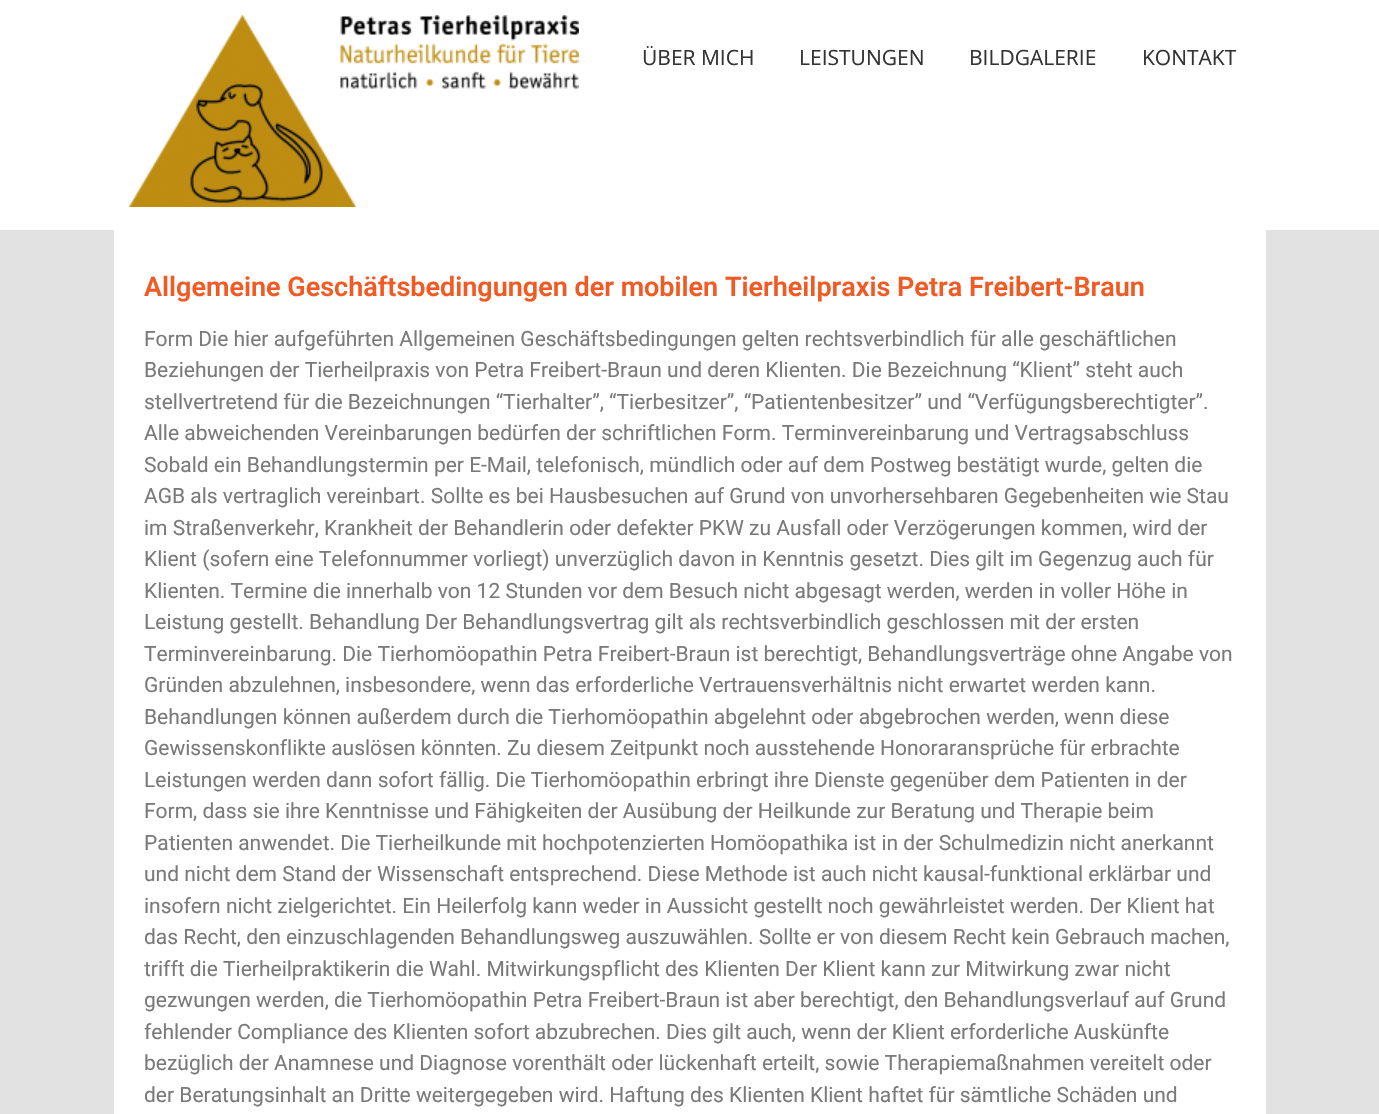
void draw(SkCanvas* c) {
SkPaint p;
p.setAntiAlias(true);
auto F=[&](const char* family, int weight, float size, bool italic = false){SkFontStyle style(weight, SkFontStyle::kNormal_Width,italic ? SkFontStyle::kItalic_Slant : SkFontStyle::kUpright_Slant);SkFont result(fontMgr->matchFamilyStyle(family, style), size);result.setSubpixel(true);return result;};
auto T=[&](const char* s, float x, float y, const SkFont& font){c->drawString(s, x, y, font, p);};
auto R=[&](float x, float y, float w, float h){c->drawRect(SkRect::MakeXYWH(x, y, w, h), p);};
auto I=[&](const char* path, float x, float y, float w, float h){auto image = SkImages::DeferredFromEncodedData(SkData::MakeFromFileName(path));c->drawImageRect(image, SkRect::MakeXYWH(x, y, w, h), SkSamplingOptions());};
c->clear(0xffe2e2e2);
p.setColor(0xffffffff);
R(0,0,1379,230);
I("1.png",129,15,450,192);
auto f1 = F("Open Sans",400,21);
p.setColor(0xff333333);
T("ÜBER MICH",642,65,f1);
T("LEISTUNGEN",799,65,f1);
T("BILDGALERIE",969,65,f1);
T("KONTAKT",1142,65,f1);
p.setColor(0xffffffff);
R(114,230,1152,884);
auto f2 = F("Roboto",600,27);
p.setColor(0xfff15a23);
T("Allgemeine Geschäftsbedingungen der mobilen Tierheilpraxis Petra Freibert-Braun",144,296,f2);
auto f3 = F("Roboto",400,21);
p.setColor(0xff7a7a7a);
T("Form Die hier aufgeführten Allgemeinen Geschäftsbedingungen gelten rechtsverbindlich für alle geschäftlichen",144,346,f3);
T("Beziehungen der Tierheilpraxis von Petra Freibert-Braun und deren Klienten. Die Bezeichnung “Klient” steht auch",144,377,f3);
T("stellvertretend für die Bezeichnungen “Tierhalter”, “Tierbesitzer”, “Patientenbesitzer” und “Verfügungsberechtigter”.",144,409,f3);
T("Alle abweichenden Vereinbarungen bedürfen der schriftlichen Form. Terminvereinbarung und Vertragsabschluss",144,440,f3);
T("Sobald ein Behandlungstermin per E-Mail, telefonisch, mündlich oder auf dem Postweg bestätigt wurde, gelten die",144,472,f3);
T("AGB als vertraglich vereinbart. Sollte es bei Hausbesuchen auf Grund von unvorhersehbaren Gegebenheiten wie Stau",144,503,f3);
T("im Straßenverkehr, Krankheit der Behandlerin oder defekter PKW zu Ausfall oder Verzögerungen kommen, wird der",144,535,f3);
T("Klient (sofern eine Telefonnummer vorliegt) unverzüglich davon in Kenntnis gesetzt. Dies gilt im Gegenzug auch für",144,566,f3);
T("Klienten. Termine die innerhalb von 12 Stunden vor dem Besuch nicht abgesagt werden, werden in voller Höhe in",144,598,f3);
T("Leistung gestellt. Behandlung Der Behandlungsvertrag gilt als rechtsverbindlich geschlossen mit der ersten",144,629,f3);
T("Terminvereinbarung. Die Tierhomöopathin Petra Freibert-Braun ist berechtigt, Behandlungsverträge ohne Angabe von",144,661,f3);
T("Gründen abzulehnen, insbesondere, wenn das erforderliche Vertrauensverhältnis nicht erwartet werden kann.",144,692,f3);
T("Behandlungen können außerdem durch die Tierhomöopathin abgelehnt oder abgebrochen werden, wenn diese",144,724,f3);
T("Gewissenskonflikte auslösen könnten. Zu diesem Zeitpunkt noch ausstehende Honoraransprüche für erbrachte",144,755,f3);
T("Leistungen werden dann sofort fällig. Die Tierhomöopathin erbringt ihre Dienste gegenüber dem Patienten in der",144,787,f3);
T("Form, dass sie ihre Kenntnisse und Fähigkeiten der Ausübung der Heilkunde zur Beratung und Therapie beim",144,818,f3);
T("Patienten anwendet. Die Tierheilkunde mit hochpotenzierten Homöopathika ist in der Schulmedizin nicht anerkannt",144,850,f3);
T("und nicht dem Stand der Wissenschaft entsprechend. Diese Methode ist auch nicht kausal-funktional erklärbar und",144,881,f3);
T("insofern nicht zielgerichtet. Ein Heilerfolg kann weder in Aussicht gestellt noch gewährleistet werden. Der Klient hat",144,913,f3);
T("das Recht, den einzuschlagenden Behandlungsweg auszuwählen. Sollte er von diesem Recht kein Gebrauch machen,",144,944,f3);
T("trifft die Tierheilpraktikerin die Wahl. Mitwirkungspflicht des Klienten Der Klient kann zur Mitwirkung zwar nicht",144,976,f3);
T("gezwungen werden, die Tierhomöopathin Petra Freibert-Braun ist aber berechtigt, den Behandlungsverlauf auf Grund",144,1007,f3);
T("fehlender Compliance des Klienten sofort abzubrechen. Dies gilt auch, wenn der Klient erforderliche Auskünfte",144,1039,f3);
T("bezüglich der Anamnese und Diagnose vorenthält oder lückenhaft erteilt, sowie Therapiemaßnahmen vereitelt oder",144,1070,f3);
T("der Beratungsinhalt an Dritte weitergegeben wird. Haftung des Klienten Klient haftet für sämtliche Schäden und",144,1102,f3);
}
